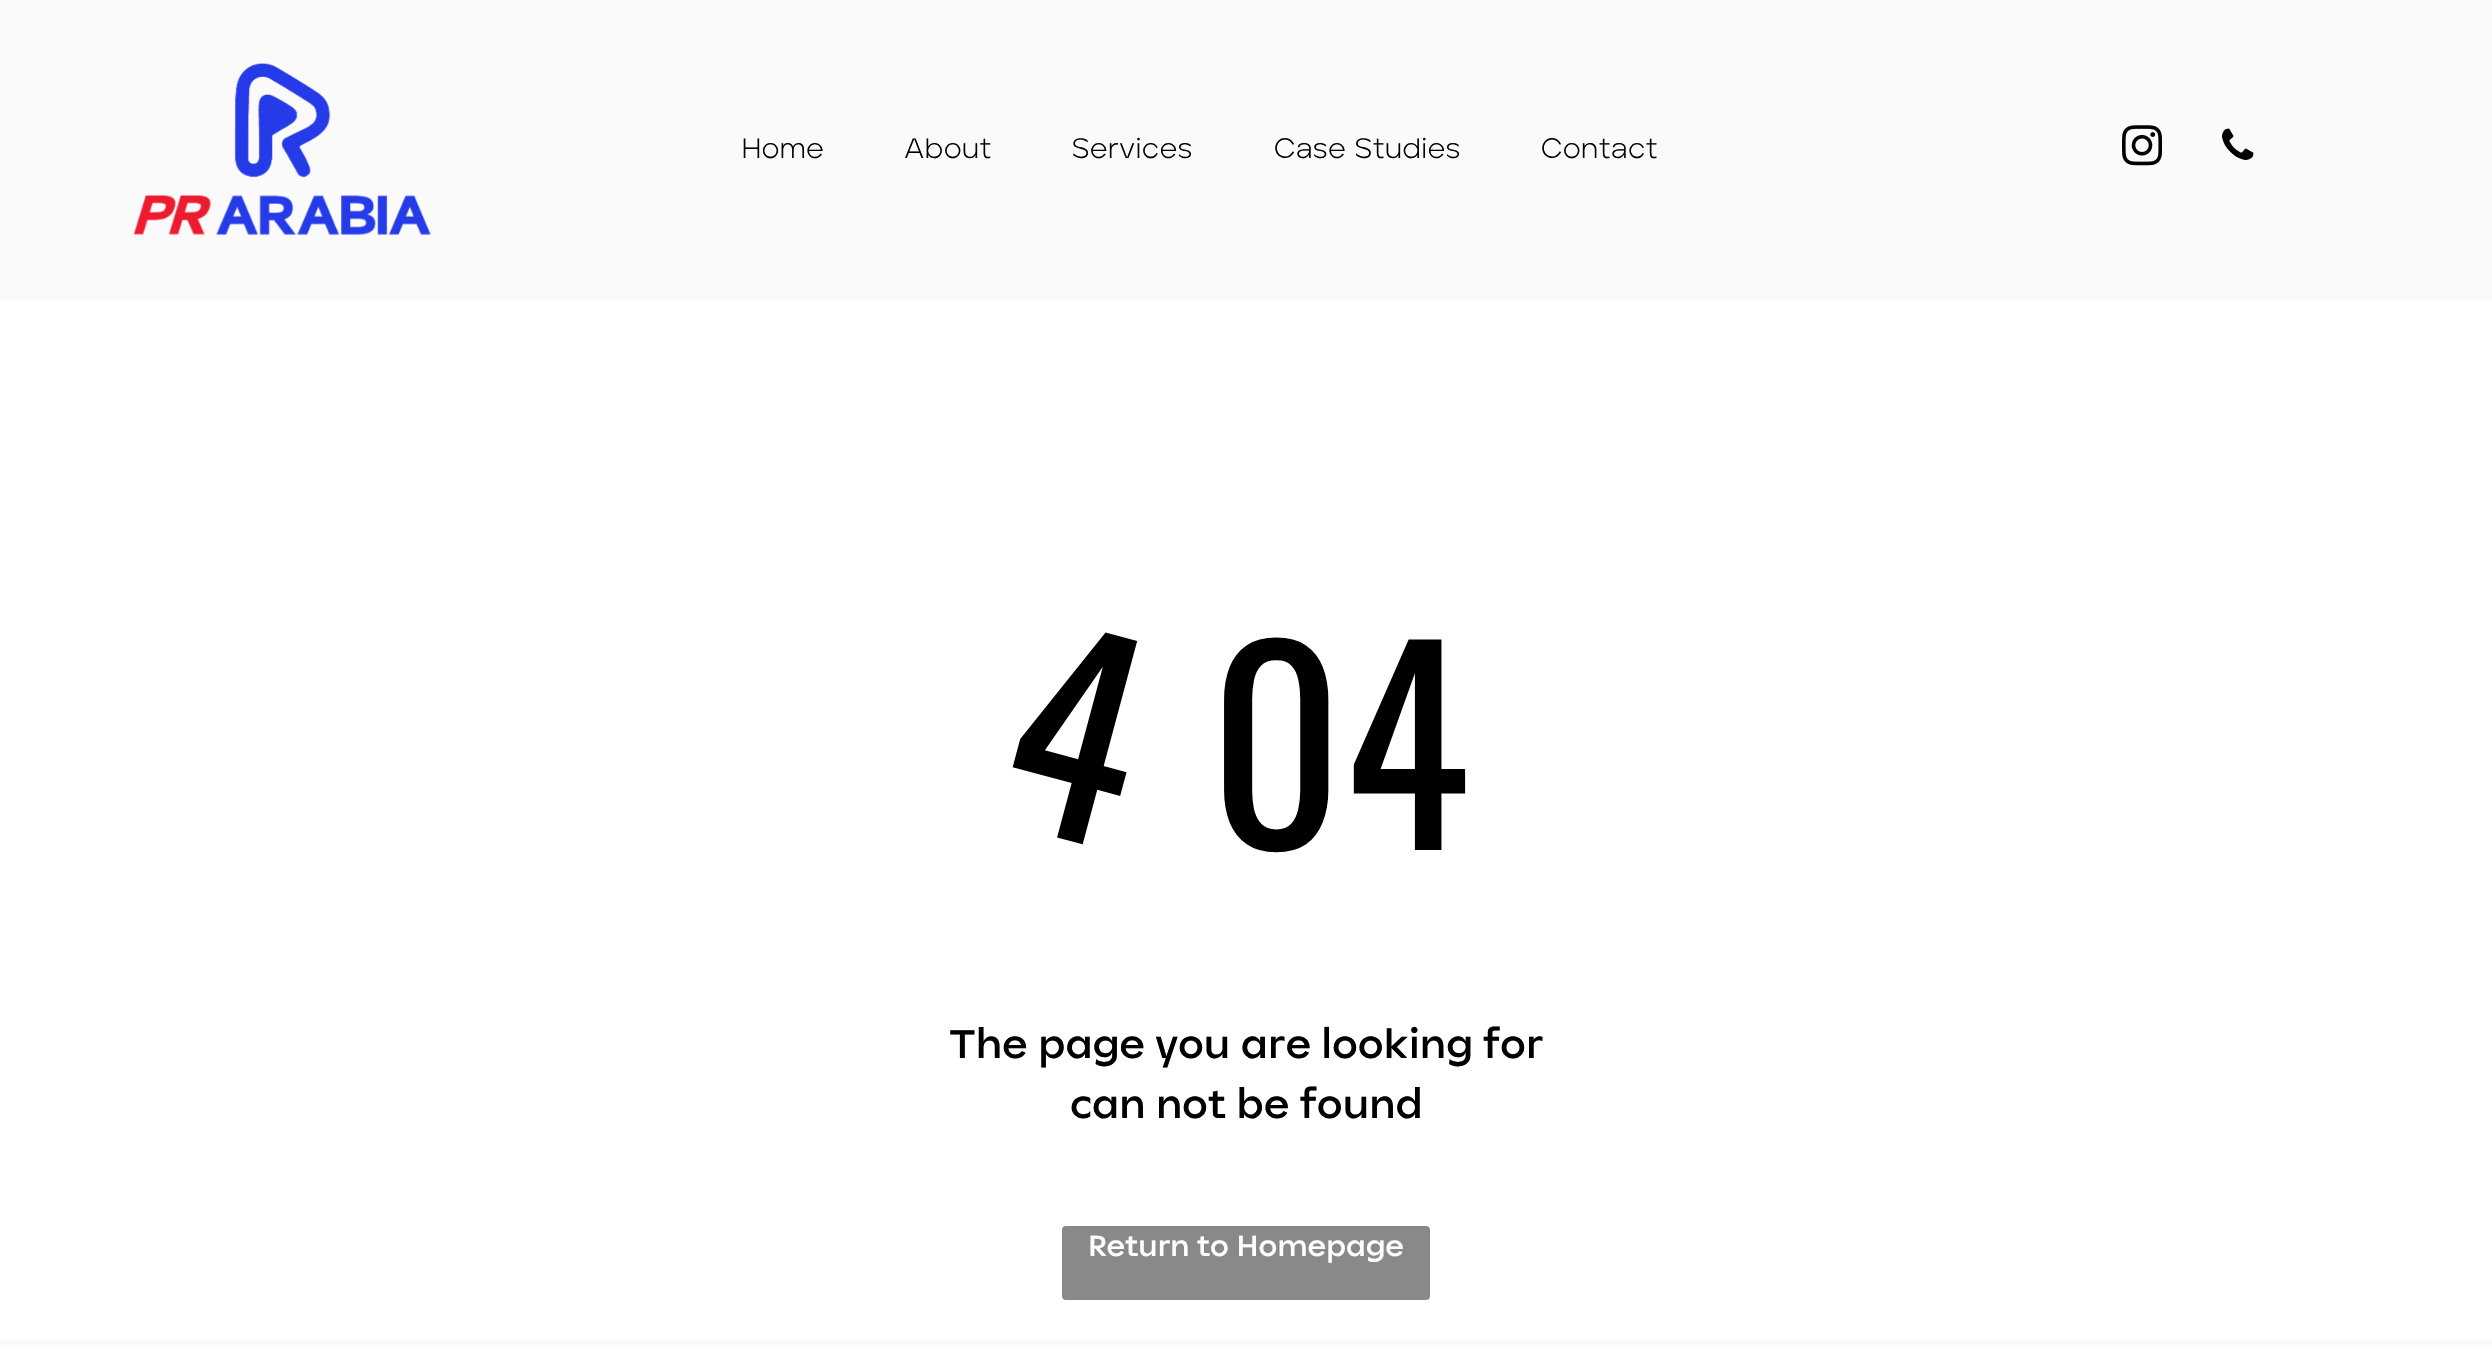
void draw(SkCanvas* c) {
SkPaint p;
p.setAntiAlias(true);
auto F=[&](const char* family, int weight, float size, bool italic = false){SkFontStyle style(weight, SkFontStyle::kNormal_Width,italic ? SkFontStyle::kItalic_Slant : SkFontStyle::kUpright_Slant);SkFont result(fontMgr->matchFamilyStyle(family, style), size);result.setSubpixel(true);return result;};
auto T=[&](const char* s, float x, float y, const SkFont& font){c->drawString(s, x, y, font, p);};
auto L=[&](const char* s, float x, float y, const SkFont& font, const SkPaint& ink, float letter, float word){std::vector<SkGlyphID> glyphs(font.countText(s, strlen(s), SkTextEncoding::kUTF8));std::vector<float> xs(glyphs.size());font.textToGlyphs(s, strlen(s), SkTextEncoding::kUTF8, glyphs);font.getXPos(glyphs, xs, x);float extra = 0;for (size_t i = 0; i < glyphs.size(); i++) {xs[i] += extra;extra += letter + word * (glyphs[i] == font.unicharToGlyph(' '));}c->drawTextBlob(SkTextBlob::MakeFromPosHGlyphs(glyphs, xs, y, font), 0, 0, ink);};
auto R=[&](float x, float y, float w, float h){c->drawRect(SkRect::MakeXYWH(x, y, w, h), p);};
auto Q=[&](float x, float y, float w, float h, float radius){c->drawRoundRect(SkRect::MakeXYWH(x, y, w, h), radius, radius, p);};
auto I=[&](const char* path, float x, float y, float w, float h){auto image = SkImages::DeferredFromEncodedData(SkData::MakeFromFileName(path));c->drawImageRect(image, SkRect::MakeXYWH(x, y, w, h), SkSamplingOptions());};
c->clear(0xffffffff);
p.setColor(0xfffafafa);
R(0,0,2492,300);
I("1.png",133,63,298,172);
auto f1 = F("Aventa",300,28);
p.setColor(0xff000000);
L("Home",742,158,f1,p,.8,0);
L("About",904,158,f1,p,.8,0);
L("Services",1072,158,f1,p,.8,0);
L("Case Studies",1274,158,f1,p,.8,0);
L("Contact",1541,158,f1,p,.8,0);
I("2.png",2122,125,40,41);
I("3.png",2222,128,32,32);
auto f2 = F("Oswald",400,260);
c->save();
c->rotate(15,988,819);
T("4",988,819,f2);
c->restore();
T("04",1209,850,f2);
auto f3 = F("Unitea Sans",500,44);
T("The page you are looking for",949,1058,f3);
T("can not be found",1070,1118,f3);
p.setColor(0xff898989);
Q(1062,1226,368,74,4);
auto f4 = F("Unitea Sans",500,32);
p.setColor(0xffffffff);
T("Return to Homepage",1088,1256,f4);
p.setColor(0xfffafafa);
R(0,1340,2492,5);
}
